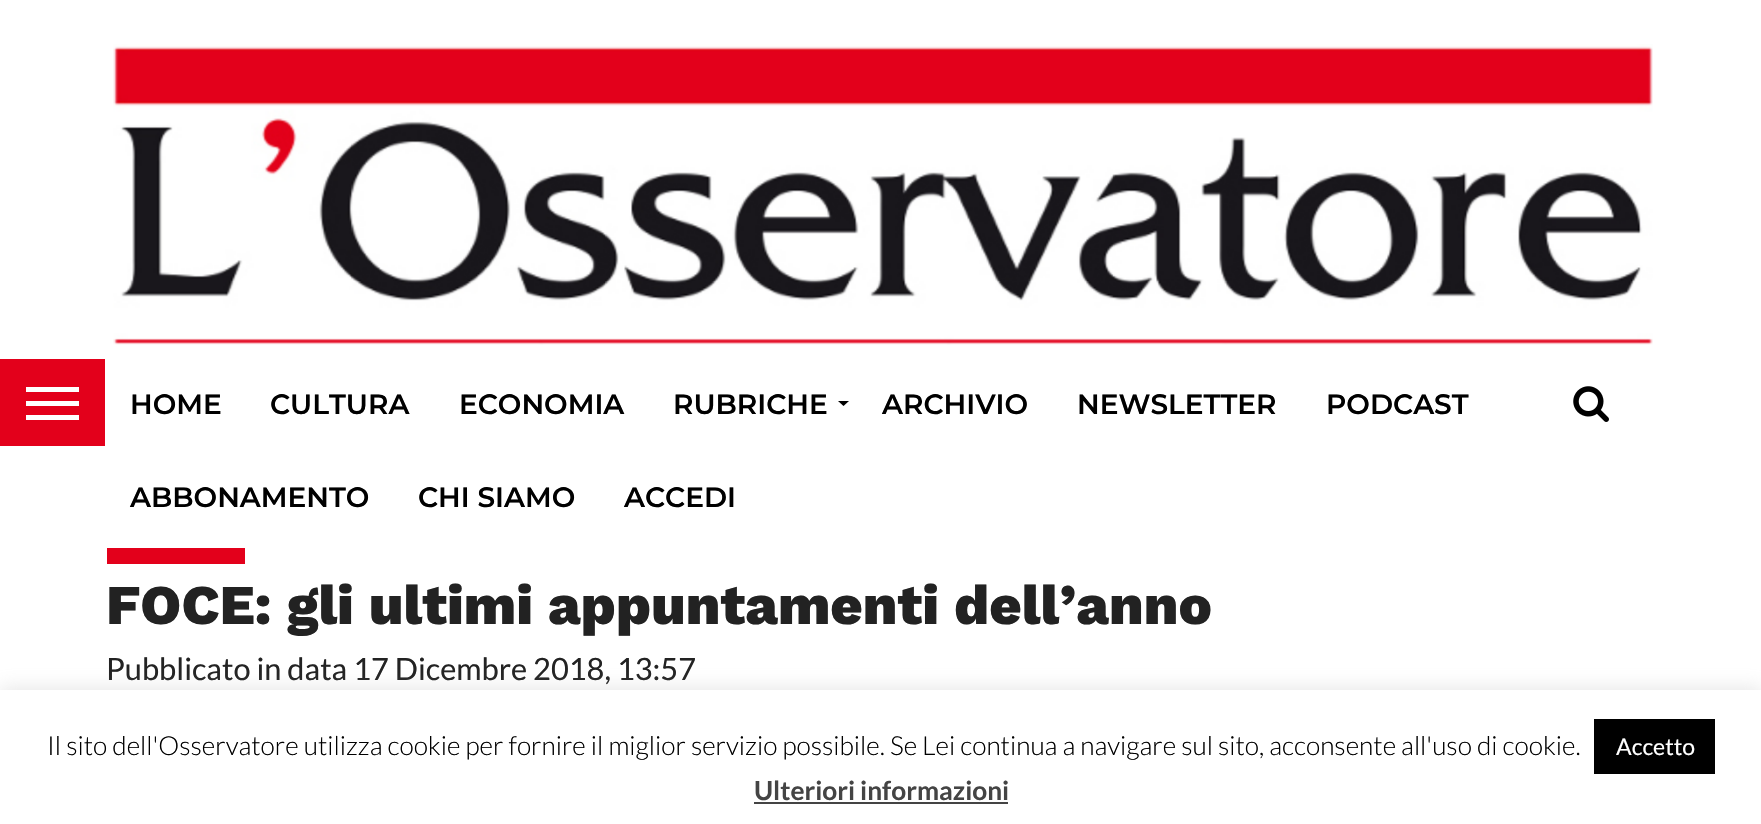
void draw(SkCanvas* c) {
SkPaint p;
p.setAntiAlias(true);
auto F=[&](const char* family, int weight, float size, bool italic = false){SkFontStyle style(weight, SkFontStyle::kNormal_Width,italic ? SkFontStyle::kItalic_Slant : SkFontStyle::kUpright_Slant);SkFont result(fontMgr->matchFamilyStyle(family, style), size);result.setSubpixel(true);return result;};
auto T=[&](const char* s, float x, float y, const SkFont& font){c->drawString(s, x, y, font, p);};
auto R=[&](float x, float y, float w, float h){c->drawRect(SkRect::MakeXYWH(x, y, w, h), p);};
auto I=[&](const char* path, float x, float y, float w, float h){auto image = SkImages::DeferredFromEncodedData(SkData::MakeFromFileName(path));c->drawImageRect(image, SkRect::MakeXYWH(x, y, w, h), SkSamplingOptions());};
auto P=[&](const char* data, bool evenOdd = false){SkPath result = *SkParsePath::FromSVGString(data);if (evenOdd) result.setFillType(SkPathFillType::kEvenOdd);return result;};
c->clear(0xffffffff);
I("1.png",113,44,1540,301);
p.setColor(0xffe3001b);
R(0,359,105,87);
p.setColor(0xffffffff);
R(26,387,53,5);
R(26,401,53,5);
R(26,415,53,5);
auto f1 = F("Montserrat",600,28);
p.setColor(0xff000000);
T("HOME",130,414,f1);
T("CULTURA",270,414,f1);
T("ECONOMIA",459,414,f1);
T("RUBRICHE",673,414,f1);
c->drawPath(P("M838 401h11l-5.5 5z"),p);
T("ARCHIVIO",882,414,f1);
T("NEWSLETTER",1077,414,f1);
T("PODCAST",1326,414,f1);
T("ABBONAMENTO",130,507,f1);
T("CHI SIAMO",418,507,f1);
T("ACCEDI",624,507,f1);
I("2.png",1573,386,36,36);
p.setColor(0xffe3001b);
R(107,548,138,16);
auto f2 = F("Work Sans",800,56);
p.setColor(0xff222222);
T("FOCE: gli ultimi appuntamenti dell’anno",106,624,f2);
auto f3 = F("Lato",400,30.75);
T("Pubblicato in data 17 Dicembre 2018, 13:57",106,680,f3);
p.setColor(0x4dacabab);
p.setMaskFilter(SkMaskFilter::MakeBlur(kNormal_SkBlurStyle, 9));
c->drawRect(SkRect::MakeXYWH(0,688,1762,135),p);
p.setMaskFilter(nullptr);
p.setColor(0xffffffff);
R(0,690,1761,134);
auto f4 = F("Lato",300,26.25);
p.setColor(0xff000000);
T("Il sito dell'Osservatore utilizza cookie per fornire il miglior servizio possibile. Se Lei continua a navigare sul sito, acconsente all'uso di cookie.",47,755,f4);
R(1594,719,121,55);
auto f5 = F("Lato",400,23);
p.setColor(0xffffffff);
T("Accetto",1616,755,f5);
auto f6 = F("Lato",700,26.25);
p.setColor(0xff444444);
T("Ulteriori informazioni",754,800,f6);
R(754,802,254,2);
}
